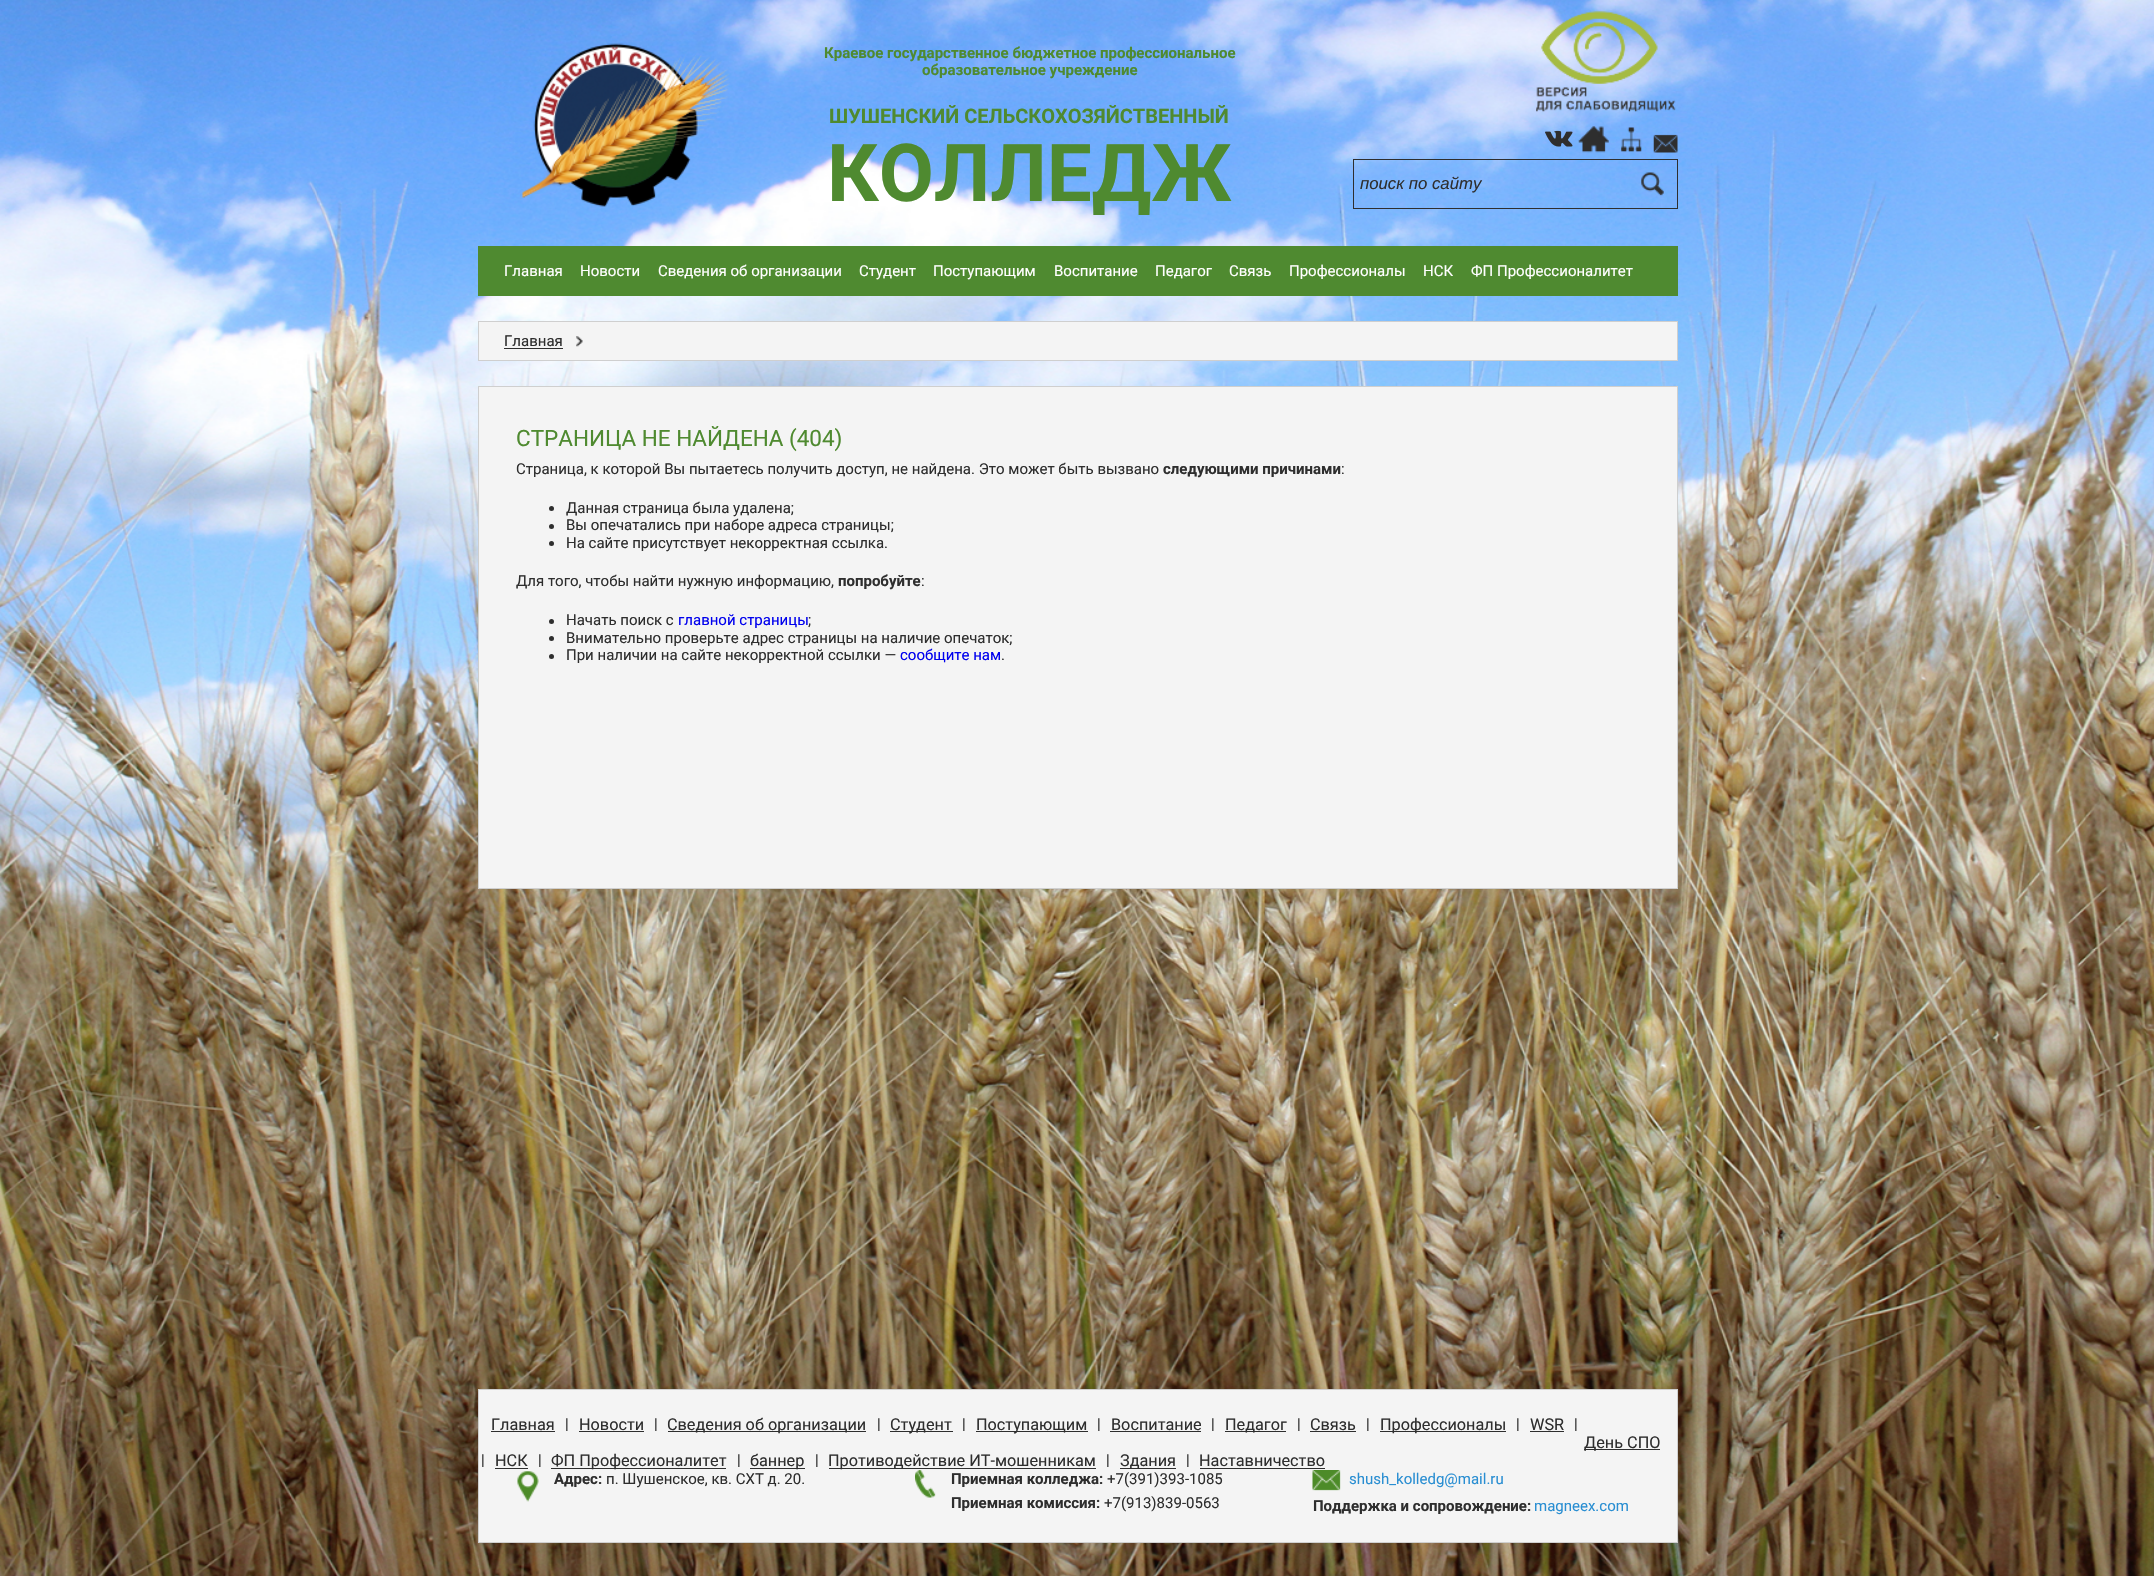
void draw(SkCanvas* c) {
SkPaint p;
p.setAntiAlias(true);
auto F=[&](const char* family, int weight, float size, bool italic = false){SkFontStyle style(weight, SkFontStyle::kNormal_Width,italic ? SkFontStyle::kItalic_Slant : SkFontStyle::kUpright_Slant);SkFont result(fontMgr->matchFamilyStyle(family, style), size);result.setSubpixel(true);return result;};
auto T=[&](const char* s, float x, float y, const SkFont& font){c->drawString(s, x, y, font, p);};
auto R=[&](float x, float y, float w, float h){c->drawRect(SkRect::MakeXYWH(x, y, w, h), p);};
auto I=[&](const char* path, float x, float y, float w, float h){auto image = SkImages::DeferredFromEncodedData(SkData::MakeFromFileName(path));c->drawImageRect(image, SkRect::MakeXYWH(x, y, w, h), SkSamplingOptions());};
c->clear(0xffffffff);
I("1.png",0,0,2154,1576);
I("2.png",521,43,209,164);
auto f1 = F("Roboto",700,15);
p.setColor(0xff4f8a30);
T("Краевое государственное бюджетное профессиональное",824,58,f1);
T("образовательное учреждение",922,75,f1);
auto f2 = F("Roboto",700,20);
T("ШУШЕНСКИЙ СЕЛЬСКОХОЗЯЙСТВЕННЫЙ",829,123,f2);
auto f3 = F("Roboto",700,80);
T("КОЛЛЕДЖ",827,201,f3);
I("3.png",1545,130,28,17);
I("4.png",1578,126,31,27);
I("5.png",1621,127,21,25);
I("6.png",1653,134,25,19);
p.setStroke(true);
p.setStrokeWidth(1);
p.setColor(0xff2e2e2e);
c->drawRect(SkRect::MakeXYWH(1353.5,159.5,324,49),p);
auto f4 = F("Liberation Sans",400,16.75,true);
p.setStroke(false);
T("поиск по сайту",1360,189,f4);
I("7.png",1641,172,23,24);
I("8.png",1536,11,140,101);
p.setColor(0xff4f8a30);
R(478,246,1200,50);
auto f5 = F("Roboto",400,15);
p.setColor(0xffffffff);
T("Главная",504,276,f5);
T("Новости",580,276,f5);
T("Сведения об организации",658,276,f5);
T("Студент",859,276,f5);
T("Поступающим",933,276,f5);
T("Воспитание",1054,276,f5);
T("Педагог",1155,276,f5);
T("Cвязь",1229,276,f5);
T("Профессионалы",1289,276,f5);
T("НСК",1423,276,f5);
T("ФП Профессионалитет",1471,276,f5);
p.setColor(0xfff4f4f4);
c->drawRect(SkRect::MakeXYWH(478.5,321.5,1199,39),p);
p.setStroke(true);
p.setColor(0xffcfcfcf);
c->drawRect(SkRect::MakeXYWH(478.5,321.5,1199,39),p);
p.setStroke(false);
p.setColor(0xff2e2e2e);
T("Главная",504,346,f5);
R(504,348,59,1);
I("9.png",576,336,7,11);
p.setColor(0xfff4f4f4);
c->drawRect(SkRect::MakeXYWH(478.5,386.5,1199,502),p);
p.setStroke(true);
p.setColor(0xffcfcfcf);
c->drawRect(SkRect::MakeXYWH(478.5,386.5,1199,502),p);
auto f6 = F("Roboto",400,22.5);
p.setStroke(false);
p.setColor(0xff4f8a30);
T("СТРАНИЦА НЕ НАЙДЕНА (404)",516,446,f6);
p.setColor(0xff2e2e2e);
T("Страница, к которой Вы пытаетесь получить доступ, не найдена. Это может быть вызвано",516,474,f5);
T("следующими причинами",1163,474,f1);
T(":",1341,474,f5);
c->drawCircle(551.5,508.5,2.5,p);
T("Данная страница была удалена;",566,513,f5);
c->drawCircle(551.5,526.5,2.5,p);
T("Вы опечатались при наборе адреса страницы;",566,530,f5);
c->drawCircle(551.5,543.5,2.5,p);
T("На сайте присутствует некорректная ссылка.",566,548,f5);
T("Для того, чтобы найти нужную информацию,",516,586,f5);
T("попробуйте",838,586,f1);
T(":",921,586,f5);
c->drawCircle(551.5,621.5,2.5,p);
T("Начать поиск с",566,625,f5);
p.setColor(0xff0000ee);
T("главной страницы",678,625,f5);
p.setColor(0xff2e2e2e);
T(";",808,625,f5);
c->drawCircle(551.5,638.5,2.5,p);
T("Внимательно проверьте адрес страницы на наличие опечаток;",566,643,f5);
c->drawCircle(551.5,656.5,2.5,p);
T("При наличии на сайте некорректной ссылки —",566,660,f5);
p.setColor(0xff0000ee);
T("сообщите нам",900,660,f5);
p.setColor(0xff2e2e2e);
T(".",1001,660,f5);
p.setColor(0xfff4f4f4);
c->drawRect(SkRect::MakeXYWH(478.5,1389.5,1199,153),p);
p.setStroke(true);
p.setColor(0xffcfcfcf);
c->drawRect(SkRect::MakeXYWH(478.5,1389.5,1199,153),p);
auto f7 = F("Roboto",400,16.25);
p.setStroke(false);
p.setColor(0xff2e2e2e);
T("Главная",491,1430,f7);
R(491,1431,64,1);
T("|",565,1429,f5);
T("Новости",579,1430,f7);
R(579,1431,65,1);
T("|",654,1429,f5);
R(668,1431,198,1);
T("Сведения об организации",667,1430,f7);
T("|",877,1429,f5);
R(890,1431,63,1);
T("Студент",890,1430,f7);
T("|",962,1429,f5);
R(976,1431,112,1);
T("Поступающим",976,1430,f7);
T("|",1097,1429,f5);
T("Воспитание",1111,1430,f7);
R(1110,1431,91,1);
T("|",1211,1429,f5);
R(1225,1431,61,1);
T("Педагог",1225,1430,f7);
T("|",1297,1429,f5);
T("Cвязь",1310,1430,f7);
R(1310,1431,46,1);
T("|",1366,1429,f5);
R(1380,1431,126,1);
T("Профессионалы",1380,1430,f7);
T("|",1516,1429,f5);
T("WSR",1530,1430,f7);
R(1530,1431,34,1);
T("|",1574,1429,f5);
R(1584,1449,76,1);
T("День CПO",1584,1448,f7);
T("|",481,1465,f5);
T("НСК",495,1466,f7);
R(495,1468,33,1);
T("|",538,1465,f5);
R(551,1468,175,1);
T("ФП Профессионалитет",551,1466,f7);
T("|",737,1465,f5);
R(750,1468,55,1);
T("баннер",750,1466,f7);
T("|",815,1465,f5);
R(829,1468,267,1);
T("Противодействие ИТ-мошенникам",828,1466,f7);
T("|",1106,1465,f5);
R(1120,1468,56,1);
T("Здания",1120,1466,f7);
T("|",1186,1465,f5);
T("Наставничество",1199,1466,f7);
R(1200,1468,125,1);
I("10.png",517,1471,22,31);
T("Адрес:",554,1484,f1);
T("п. Шушенское, кв. СХТ д. 20.",606,1484,f5);
I("11.png",915,1470,21,28);
T("Приемная колледжа:",951,1484,f1);
T("+7(391)393-1085",1107,1484,f5);
T("Приемная комиссия:",951,1508,f1);
T("+7(913)839-0563",1104,1508,f5);
I("12.png",1312,1470,29,21);
p.setColor(0xff298ed2);
T("shush_kolledg@mail.ru",1349,1484,f5);
p.setColor(0xff2e2e2e);
T("Поддержка и сопровождение:",1313,1511,f1);
p.setColor(0xff298ed2);
T("magneex.com",1534,1511,f5);
}
